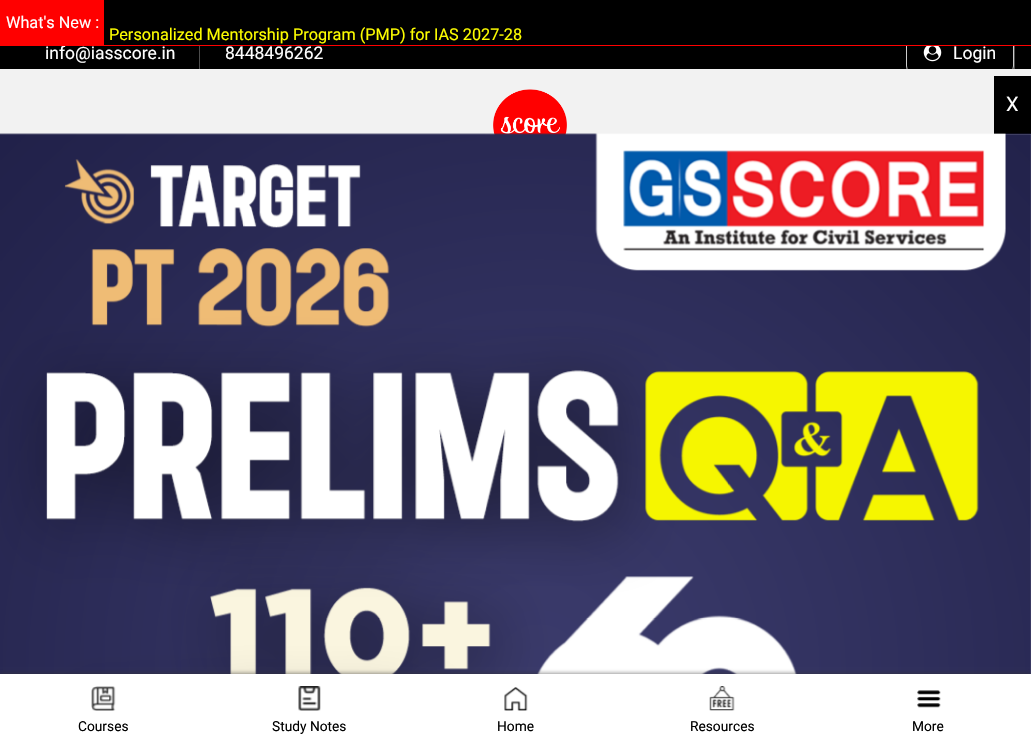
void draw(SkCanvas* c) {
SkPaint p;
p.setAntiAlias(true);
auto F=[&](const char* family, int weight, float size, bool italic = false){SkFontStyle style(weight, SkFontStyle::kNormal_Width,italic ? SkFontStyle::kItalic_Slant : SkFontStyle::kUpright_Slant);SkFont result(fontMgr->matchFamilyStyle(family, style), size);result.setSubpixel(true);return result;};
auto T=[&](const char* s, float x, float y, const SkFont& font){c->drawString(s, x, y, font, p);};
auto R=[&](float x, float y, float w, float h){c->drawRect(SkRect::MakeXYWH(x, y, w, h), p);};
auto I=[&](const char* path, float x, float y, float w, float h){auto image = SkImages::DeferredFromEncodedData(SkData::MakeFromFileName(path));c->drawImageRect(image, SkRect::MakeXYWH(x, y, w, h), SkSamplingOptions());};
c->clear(0xffffffff);
p.setColor(0xff000000);
R(0,46,1031,23);
p.setStroke(true);
p.setStrokeWidth(1);
p.setColor(0xffcccccc);
c->drawRoundRect(SkRect::MakeXYWH(906.5,33.5,107,40),7.5,7.5,p);
p.setStroke(false);
p.setColor(0xff000000);
R(104,0,927,45);
auto f1 = F("Roboto",400,17.5);
p.setColor(0xffffffff);
T("info@iasscore.in",45,59,f1);
p.setColor(0xffff0000);
R(0,45,1031,1);
R(0,0,104,45);
auto f2 = F("Roboto",400,16.25);
p.setColor(0xffffffff);
T("What's New :",6,28,f2);
p.setColor(0xfffdfd00);
T("Personalized Mentorship Program (PMP) for IAS 2027-28",109,40,f2);
p.setColor(0xff4d4d4d);
R(199,46,1,23);
p.setColor(0xffffffff);
T("8448496262",225,59,f1);
p.setColor(0xff4d4d4d);
R(1014,46,1,23);
I("1.png",923,46,19,16);
p.setColor(0xffffffff);
T("Login",953,59,f1);
p.setColor(0xfff2f2f2);
R(0,69,1031,110);
I("2.png",493,89,74,46);
p.setColor(0xff000000);
R(994,76,37,58);
auto f3 = F("Roboto",400,20);
p.setColor(0xffffffff);
T("X",1006,111,f3);
I("3.png",0,133,1031,541);
p.setColor(0x80323232);
p.setMaskFilter(SkMaskFilter::MakeBlur(kNormal_SkBlurStyle, 2));
c->drawRect(SkRect::MakeXYWH(0,673,1031,82),p);
p.setMaskFilter(nullptr);
p.setColor(0xffffffff);
R(0,674,1031,82);
I("4.png",91,686,25,25);
auto f4 = F("Roboto",400,13.75);
p.setColor(0xff000000);
T("Courses",78,731,f4);
I("5.png",298,686,23,25);
T("Study Notes",272,731,f4);
I("6.png",504,687,24,24);
T("Home",497,731,f4);
I("7.png",709,686,26,25);
T("Resources",690,731,f4);
I("8.png",917,690,24,18);
T("More",912,731,f4);
}
